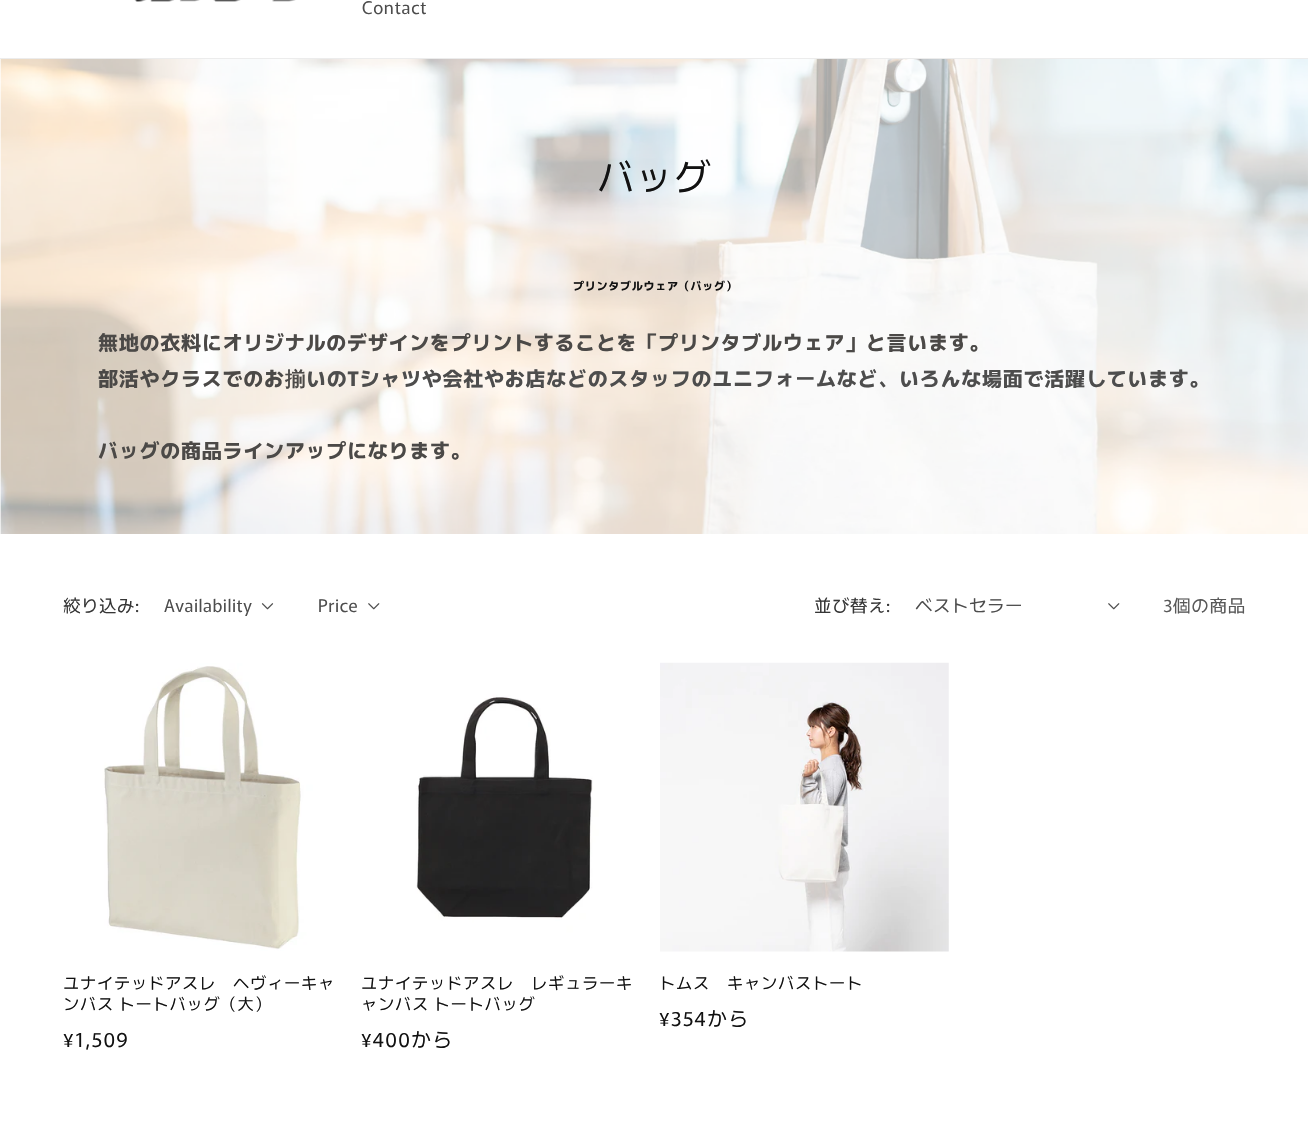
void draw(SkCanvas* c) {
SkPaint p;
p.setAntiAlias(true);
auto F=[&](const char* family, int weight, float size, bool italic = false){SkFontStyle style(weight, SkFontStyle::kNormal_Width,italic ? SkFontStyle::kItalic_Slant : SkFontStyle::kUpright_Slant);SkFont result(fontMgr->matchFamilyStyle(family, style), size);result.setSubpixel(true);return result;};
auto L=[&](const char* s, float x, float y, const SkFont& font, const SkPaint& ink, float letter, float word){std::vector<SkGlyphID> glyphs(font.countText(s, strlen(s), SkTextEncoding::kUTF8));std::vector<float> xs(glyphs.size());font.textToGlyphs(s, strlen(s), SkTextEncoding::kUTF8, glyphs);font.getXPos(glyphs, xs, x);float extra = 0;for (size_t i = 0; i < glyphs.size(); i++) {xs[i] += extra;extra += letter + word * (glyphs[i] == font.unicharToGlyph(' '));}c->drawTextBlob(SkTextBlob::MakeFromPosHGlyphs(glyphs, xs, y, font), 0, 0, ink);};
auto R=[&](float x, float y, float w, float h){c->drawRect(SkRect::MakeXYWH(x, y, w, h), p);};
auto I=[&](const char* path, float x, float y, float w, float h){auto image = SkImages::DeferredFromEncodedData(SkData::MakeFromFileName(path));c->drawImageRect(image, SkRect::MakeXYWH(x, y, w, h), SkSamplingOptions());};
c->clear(0xffffffff);
p.setColor(0xffececec);
R(0,58,1308,1);
I("1.png",134,0,162,2);
auto f1 = F("Murecho",400,17.5);
p.setColor(0xff4d4d4d);
L("Contact",362,14,f1,p,.75,0);
I("2.png",0,59,1308,475);
auto f2 = F("Murecho",400,37.5);
p.setColor(0xff121212);
L("バッグ",597,191,f2,p,.75,0);
auto f3 = F("Murecho",700,11);
L("プリンタブルウェア（バッグ）",573,290,f3,p,.75,0);
auto f4 = F("Murecho",700,20);
p.setColor(0xff4b4947);
L("無地の衣料にオリジナルのデザインをプリントすることを「プリンタブルウェア」と言います。",98,350,f4,p,.75,0);
L("部活やクラスでのお",98,386,f4,p,.75,0);
auto f5 = F("WenQuanYi Zen Hei",700,20);
L("揃",285,386,f5,p,.75,0);
p.setColor(0xff4d4d4d);
L("いのTシャツや会社やお店などのスタッフのユニフォームなど、いろんな場面で活躍しています。",306,386,f4,p,.75,0);
p.setColor(0xff4b4947);
L("バッグの商品ラインアップになります。",98,458,f4,p,.75,0);
p.setColor(0xff363636);
L("絞り込み:",63,612,f1,p,.5,0);
p.setColor(0xff4d4d4d);
L("Availability",164,612,f1,p,.5,0);
I("3.png",261,603,13,7);
L("Price",318,612,f1,p,.5,0);
I("4.png",368,603,12,7);
p.setColor(0xff363636);
L("並び替え:",814,612,f1,p,.5,0);
p.setColor(0xff4d4d4d);
L("ベストセラー",915,612,f1,p,.5,0);
I("4.png",1108,603,12,7);
p.setColor(0xff595959);
L("3個の商品",1163,612,f1,p,.75,0);
I("5.png",63,663,288,288);
auto f6 = F("Murecho",400,16.25);
p.setColor(0xff121212);
L("ユナイテッドアスレ　ヘヴィーキャ",63,989,f6,p,.75,0);
L("ンバス トートバッグ（大）",63,1010,f6,p,.75,0);
auto f7 = F("Murecho",400,20);
L("¥1,509",63,1047,f7,p,1.25,0);
I("6.png",361,663,289,288);
L("ユナイテッドアスレ　レギュラーキ",361,989,f6,p,.75,0);
L("ャンバス トートバッグ",361,1010,f6,p,.75,0);
L("¥400から",361,1047,f7,p,1.25,0);
I("7.png",660,662,289,290);
L("トムス　キャンバストート",659,989,f6,p,.75,0);
L("¥354から",659,1026,f7,p,1.25,0);
}
